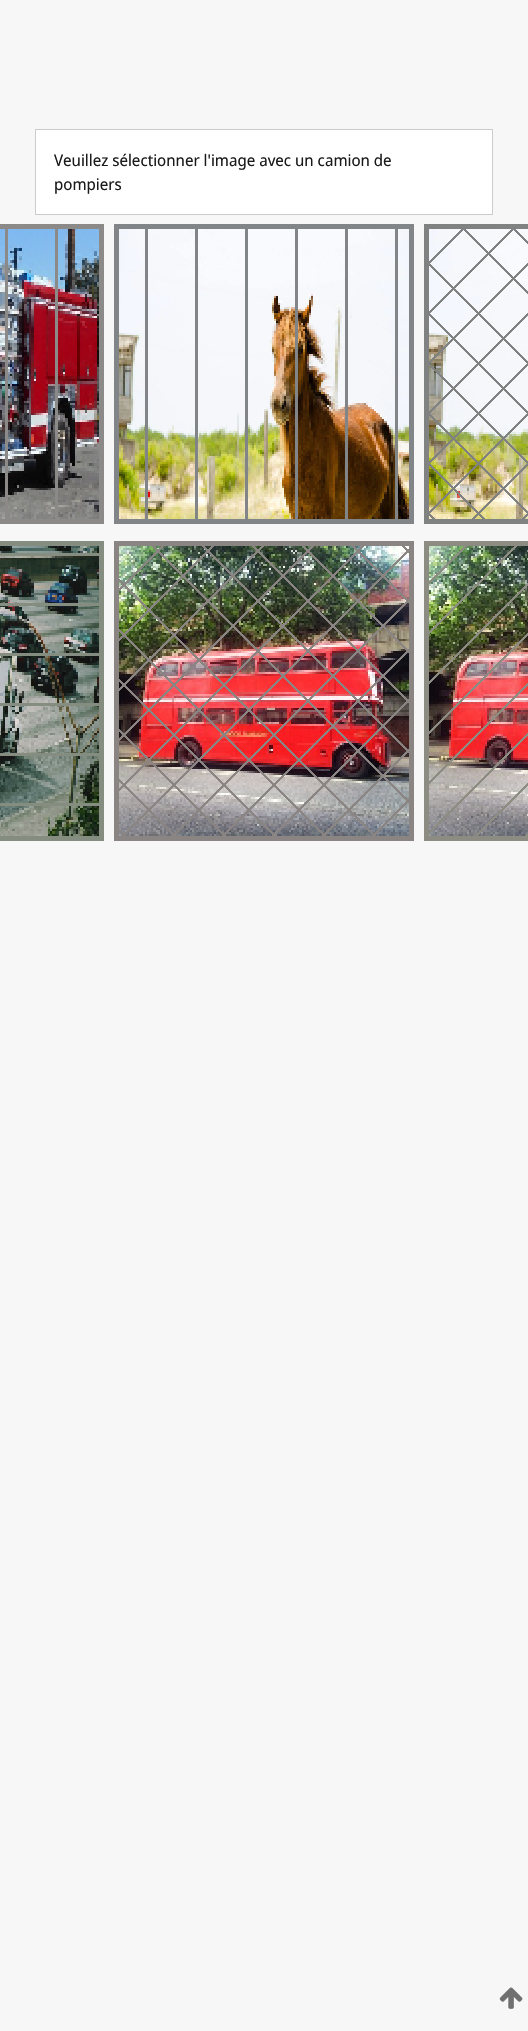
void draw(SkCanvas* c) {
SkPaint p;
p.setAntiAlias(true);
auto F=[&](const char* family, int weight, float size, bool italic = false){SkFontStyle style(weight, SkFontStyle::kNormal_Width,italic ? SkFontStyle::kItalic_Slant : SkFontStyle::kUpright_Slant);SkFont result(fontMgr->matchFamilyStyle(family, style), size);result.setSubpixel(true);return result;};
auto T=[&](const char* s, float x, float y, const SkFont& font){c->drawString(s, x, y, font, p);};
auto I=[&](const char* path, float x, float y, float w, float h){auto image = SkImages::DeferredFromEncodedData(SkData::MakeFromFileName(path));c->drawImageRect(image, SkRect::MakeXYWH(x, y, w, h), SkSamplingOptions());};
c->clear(0xfff7f7f7);
p.setColor(0xffffffff);
c->drawRect(SkRect::MakeXYWH(35.5,129.5,457,85),p);
p.setStroke(true);
p.setStrokeWidth(1);
p.setColor(0xffcccccc);
c->drawRect(SkRect::MakeXYWH(35.5,129.5,457,85),p);
auto f1 = F("Noto Sans Display",400,16);
p.setStroke(false);
p.setColor(0xff1a1a1a);
T("Veuillez sélectionner l'image avec un camion de",54,166,f1);
T("pompiers",54,190,f1);
I("1.png",0,224,104,300);
I("2.png",114,224,300,300);
I("3.png",424,224,104,300);
I("4.png",0,541,104,300);
I("5.png",114,541,300,300);
I("6.png",424,541,104,300);
I("7.png",499,1987,24,22);
}
